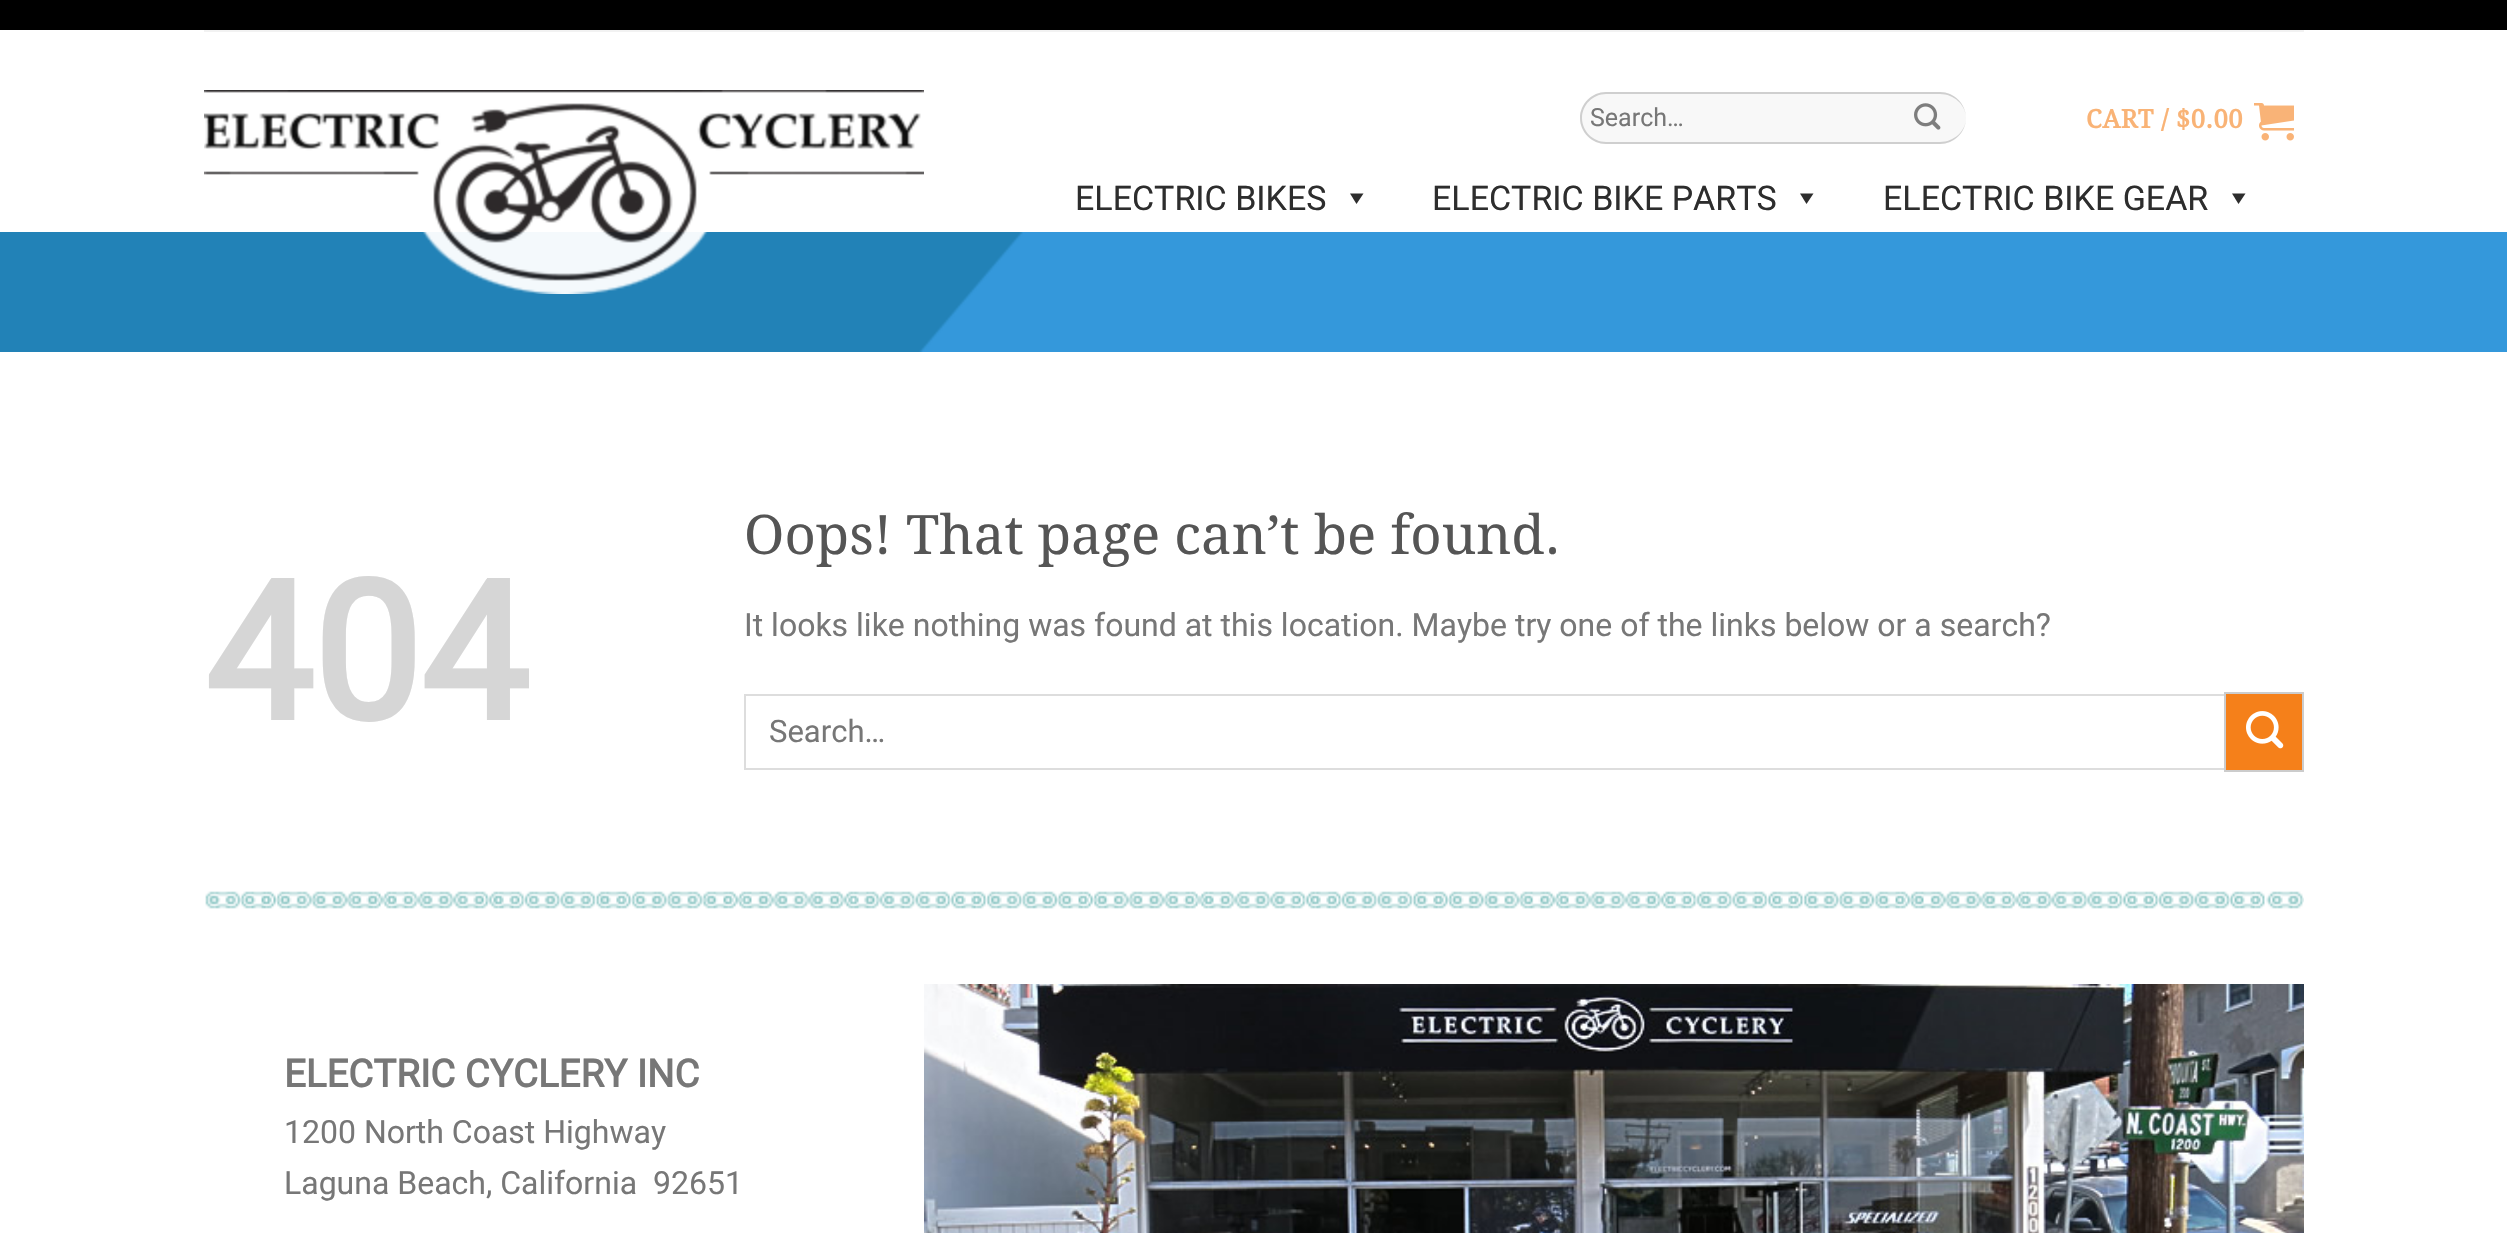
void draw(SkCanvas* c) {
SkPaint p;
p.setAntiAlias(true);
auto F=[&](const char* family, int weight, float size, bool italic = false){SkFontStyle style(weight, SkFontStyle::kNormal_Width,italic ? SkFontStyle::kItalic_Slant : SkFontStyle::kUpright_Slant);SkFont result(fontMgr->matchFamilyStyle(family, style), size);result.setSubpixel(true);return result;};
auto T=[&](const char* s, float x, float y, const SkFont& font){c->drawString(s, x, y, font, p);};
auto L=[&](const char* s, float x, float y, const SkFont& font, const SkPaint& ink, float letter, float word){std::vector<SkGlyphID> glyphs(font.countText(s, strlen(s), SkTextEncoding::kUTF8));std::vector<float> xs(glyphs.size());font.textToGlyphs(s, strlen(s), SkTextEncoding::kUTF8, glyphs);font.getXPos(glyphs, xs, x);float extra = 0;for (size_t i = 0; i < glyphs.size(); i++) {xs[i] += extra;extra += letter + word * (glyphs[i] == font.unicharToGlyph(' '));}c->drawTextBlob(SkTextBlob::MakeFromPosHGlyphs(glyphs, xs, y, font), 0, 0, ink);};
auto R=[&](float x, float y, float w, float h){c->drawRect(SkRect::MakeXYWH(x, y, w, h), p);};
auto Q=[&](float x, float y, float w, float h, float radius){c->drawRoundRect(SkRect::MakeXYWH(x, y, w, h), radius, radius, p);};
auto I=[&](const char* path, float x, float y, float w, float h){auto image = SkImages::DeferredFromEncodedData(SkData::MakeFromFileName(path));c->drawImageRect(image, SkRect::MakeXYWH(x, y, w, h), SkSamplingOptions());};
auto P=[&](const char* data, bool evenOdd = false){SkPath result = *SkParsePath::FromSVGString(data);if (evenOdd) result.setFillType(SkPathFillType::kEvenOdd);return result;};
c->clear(0xffffffff);
p.setColor(0xff000000);
R(0,0,2507,30);
p.setColor(0xfff2f2f2);
R(204,30,2100,2);
I("4.png",0,232,2507,120);
I("1.png",204,90,720,204);
p.setColor(0xfff8f8f8);
Q(1580,92,386,52,26);
p.setColor(0xffcfcfcf);
c->drawPath(P("M1606 92h334c14 0 26 12 26 26c0 14-12 26-26 26h-334c-14 0-26-12-26-26c0-14 12-26 26-26zm0 2h334c14 0 26 11 26 24c0 13-12 24-26 24h-334c-13 0-24-11-24-24c0-13 11-24 24-24z",true),p);
auto f1 = F("Roboto",400,25);
p.setColor(0xff777777);
T("Search…",1590,126,f1);
I("2.png",1914,103,27,27);
auto f2 = F("Droid Serif",700,25.5);
p.setColor(0xfff9b376);
L("CART / $0.00",2086,128,f2,p,.5,0);
I("3.png",2254,103,40,38);
auto f3 = F("Roboto",400,34);
p.setColor(0xff2d2d2d);
T("ELECTRIC BIKES",1075,210,f3);
c->drawPath(P("M1363.5 193.5l-7 10.5l-6.5-10.5z"),p);
T("ELECTRIC BIKE PARTS",1432,210,f3);
c->drawPath(P("M1813.5 193.5l-7 10.5l-6.5-10.5z"),p);
T("ELECTRIC BIKE GEAR",1883,210,f3);
c->drawPath(P("M2245.5 193.5l-7 10.5l-6.5-10.5z"),p);
auto f4 = F("Roboto",700,192);
p.setColor(0xffd6d6d6);
T("404",204,720,f4);
auto f5 = F("Droid Serif",400,54.4);
p.setColor(0xff555555);
T("Oops! That page can’t be found.",744,554,f5);
auto f6 = F("Roboto",400,32);
p.setColor(0xff777777);
T("It looks like nothing was found at this location. Maybe try one of the links below or a search?",744,636,f6);
p.setColor(0xffdddddd);
R(744,694,1480,2);
R(744,768,1480,2);
R(744,694,2,76);
auto f7 = F("Roboto",400,31);
p.setColor(0xff777777);
T("Search…",769,742,f7);
p.setColor(0xfff5801a);
c->drawRect(SkRect::MakeXYWH(2225,693,78,78),p);
p.setStroke(true);
p.setStrokeWidth(2);
p.setColor(0xffcccccc);
c->drawRect(SkRect::MakeXYWH(2225,693,78,78),p);
I("5.png",2246,711,38,38);
I("6.png",205,891,2099,18);
auto f8 = F("Roboto",700,38.4);
p.setStroke(false);
p.setColor(0xff777777);
T("ELECTRIC CYCLERY INC",284,1087,f8);
T("1200 North Coast Highway",284,1143,f6);
T("Laguna Beach, California  92651",284,1194,f6);
I("7.png",924,984,1380,249);
}
